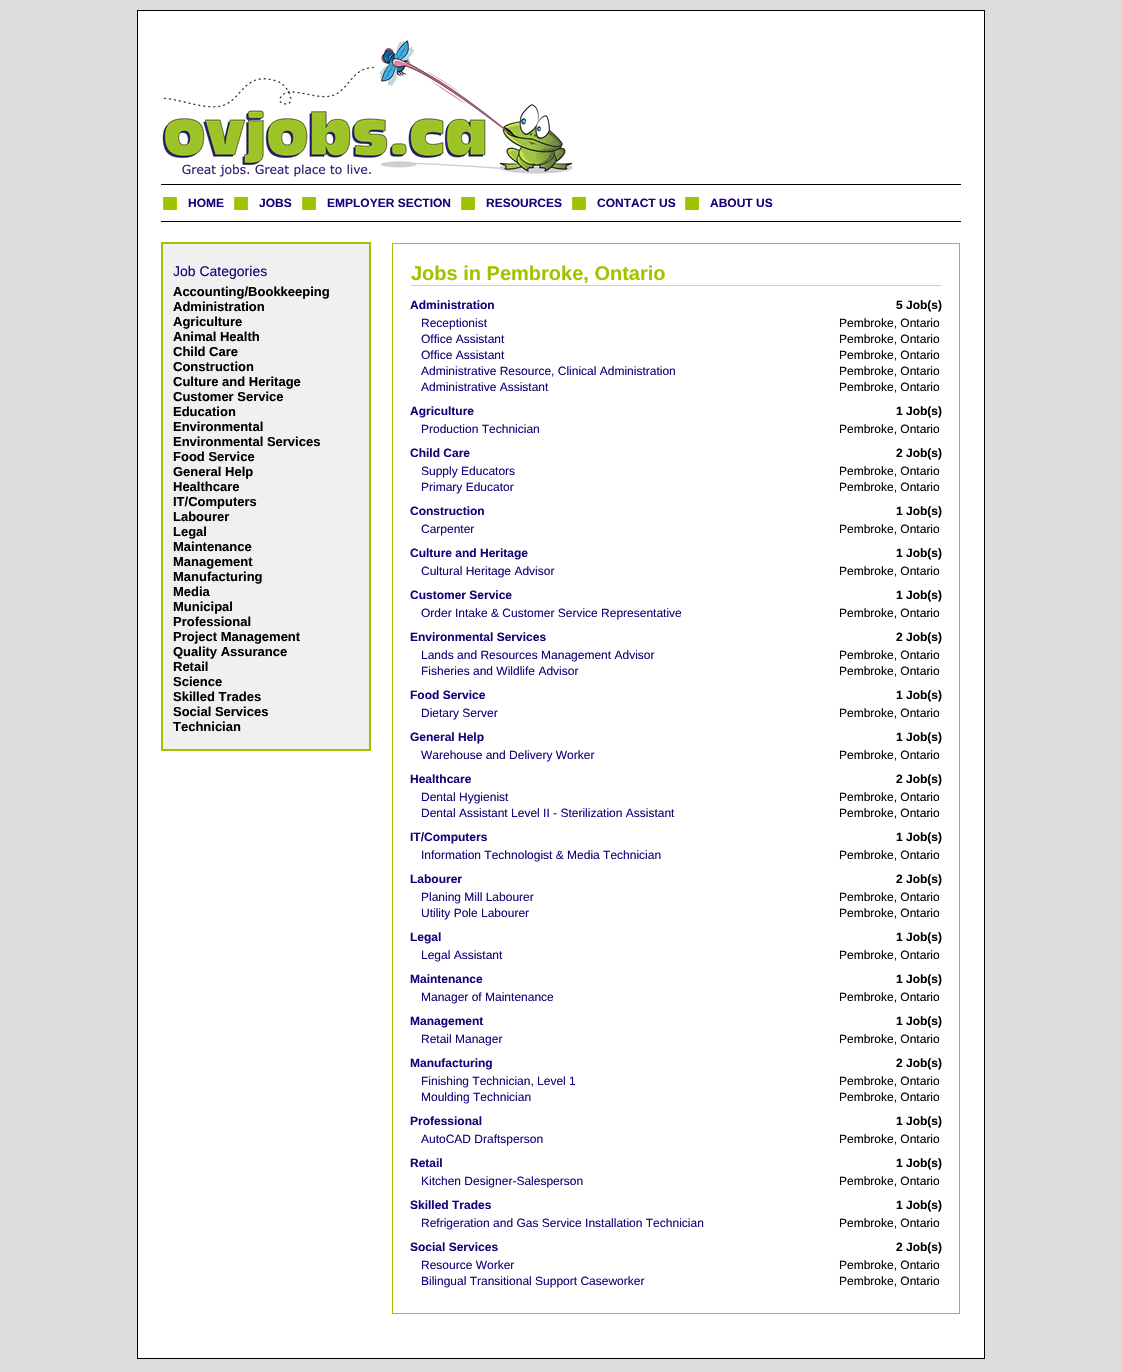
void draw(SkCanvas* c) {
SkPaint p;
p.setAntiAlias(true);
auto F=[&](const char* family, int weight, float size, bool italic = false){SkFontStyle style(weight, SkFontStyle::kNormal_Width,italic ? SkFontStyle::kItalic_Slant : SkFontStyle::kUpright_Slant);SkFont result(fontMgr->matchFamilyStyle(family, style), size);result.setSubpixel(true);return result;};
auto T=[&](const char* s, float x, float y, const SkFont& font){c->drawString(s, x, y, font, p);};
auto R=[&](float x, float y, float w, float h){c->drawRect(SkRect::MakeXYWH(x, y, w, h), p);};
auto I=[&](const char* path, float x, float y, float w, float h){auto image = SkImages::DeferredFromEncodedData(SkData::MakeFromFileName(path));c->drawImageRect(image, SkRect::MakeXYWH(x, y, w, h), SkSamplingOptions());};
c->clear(0xffdddddd);
p.setColor(0xffffffff);
c->drawRect(SkRect::MakeXYWH(137.5,10.5,847,1348),p);
p.setStroke(true);
p.setStrokeWidth(1);
p.setColor(0xff000000);
c->drawRect(SkRect::MakeXYWH(137.5,10.5,847,1348),p);
I("1.png",162,40,411,137);
p.setStroke(false);
R(161,184,800,1);
R(161,221,800,1);
I("2.png",163,197,14,13);
auto f1 = F("Liberation Sans",700,12);
p.setColor(0xff1c007a);
T("HOME",188,207,f1);
I("2.png",234,197,14,13);
T("JOBS",259,207,f1);
I("2.png",302,197,14,13);
T("EMPLOYER SECTION",327,207,f1);
I("2.png",461,197,14,13);
T("RESOURCES",486,207,f1);
I("2.png",572,197,14,13);
T("CONTACT US",597,207,f1);
I("2.png",685,197,14,13);
T("ABOUT US",710,207,f1);
p.setColor(0xfff0f0f0);
R(163,244,206,505);
p.setColor(0xff9ec400);
R(161,242,210,2);
R(369,242,2,509);
R(161,749,210,2);
R(161,242,2,509);
auto f2 = F("Liberation Sans",400,14);
p.setColor(0xff1c007a);
T("Job Categories",173,276,f2);
auto f3 = F("Liberation Sans",700,13);
p.setColor(0xff000000);
T("Accounting/Bookkeeping",173,296,f3);
T("Administration",173,311,f3);
T("Agriculture",173,326,f3);
T("Animal Health",173,341,f3);
T("Child Care",173,356,f3);
T("Construction",173,371,f3);
T("Culture and Heritage",173,386,f3);
T("Customer Service",173,401,f3);
T("Education",173,416,f3);
T("Environmental",173,431,f3);
T("Environmental Services",173,446,f3);
T("Food Service",173,461,f3);
T("General Help",173,476,f3);
T("Healthcare",173,491,f3);
T("IT/Computers",173,506,f3);
T("Labourer",173,521,f3);
T("Legal",173,536,f3);
T("Maintenance",173,551,f3);
T("Management",173,566,f3);
T("Manufacturing",173,581,f3);
T("Media",173,596,f3);
T("Municipal",173,611,f3);
T("Professional",173,626,f3);
T("Project Management",173,641,f3);
T("Quality Assurance",173,656,f3);
T("Retail",173,671,f3);
T("Science",173,686,f3);
T("Skilled Trades",173,701,f3);
T("Social Services",173,716,f3);
T("Technician",173,731,f3);
p.setStroke(true);
p.setColor(0xff9ec400);
c->drawRect(SkRect::MakeXYWH(392.5,243.5,567,1070),p);
p.setStroke(false);
p.setColor(0xffcccccc);
R(411,285,530,1);
auto f4 = F("Liberation Sans",700,20);
p.setColor(0xff9ec400);
T("Jobs in Pembroke, Ontario",411,280,f4);
p.setColor(0xff1c007a);
T("Administration",410,309,f1);
p.setColor(0xff000000);
T("5 Job(s)",896,309,f1);
auto f5 = F("Liberation Sans",400,12);
p.setColor(0xff1c007a);
T("Receptionist",421,327,f5);
p.setColor(0xff000000);
T("Pembroke, Ontario",839,327,f5);
p.setColor(0xff1c007a);
T("Office Assistant",421,343,f5);
p.setColor(0xff000000);
T("Pembroke, Ontario",839,343,f5);
p.setColor(0xff1c007a);
T("Office Assistant",421,359,f5);
p.setColor(0xff000000);
T("Pembroke, Ontario",839,359,f5);
p.setColor(0xff1c007a);
T("Administrative Resource, Clinical Administration",421,375,f5);
p.setColor(0xff000000);
T("Pembroke, Ontario",839,375,f5);
p.setColor(0xff1c007a);
T("Administrative Assistant",421,391,f5);
p.setColor(0xff000000);
T("Pembroke, Ontario",839,391,f5);
p.setColor(0xff1c007a);
T("Agriculture",410,415,f1);
p.setColor(0xff000000);
T("1 Job(s)",896,415,f1);
p.setColor(0xff1c007a);
T("Production Technician",421,433,f5);
p.setColor(0xff000000);
T("Pembroke, Ontario",839,433,f5);
p.setColor(0xff1c007a);
T("Child Care",410,457,f1);
p.setColor(0xff000000);
T("2 Job(s)",896,457,f1);
p.setColor(0xff1c007a);
T("Supply Educators",421,475,f5);
p.setColor(0xff000000);
T("Pembroke, Ontario",839,475,f5);
p.setColor(0xff1c007a);
T("Primary Educator",421,491,f5);
p.setColor(0xff000000);
T("Pembroke, Ontario",839,491,f5);
p.setColor(0xff1c007a);
T("Construction",410,515,f1);
p.setColor(0xff000000);
T("1 Job(s)",896,515,f1);
p.setColor(0xff1c007a);
T("Carpenter",421,533,f5);
p.setColor(0xff000000);
T("Pembroke, Ontario",839,533,f5);
p.setColor(0xff1c007a);
T("Culture and Heritage",410,557,f1);
p.setColor(0xff000000);
T("1 Job(s)",896,557,f1);
p.setColor(0xff1c007a);
T("Cultural Heritage Advisor",421,575,f5);
p.setColor(0xff000000);
T("Pembroke, Ontario",839,575,f5);
p.setColor(0xff1c007a);
T("Customer Service",410,599,f1);
p.setColor(0xff000000);
T("1 Job(s)",896,599,f1);
p.setColor(0xff1c007a);
T("Order Intake & Customer Service Representative",421,617,f5);
p.setColor(0xff000000);
T("Pembroke, Ontario",839,617,f5);
p.setColor(0xff1c007a);
T("Environmental Services",410,641,f1);
p.setColor(0xff000000);
T("2 Job(s)",896,641,f1);
p.setColor(0xff1c007a);
T("Lands and Resources Management Advisor",421,659,f5);
p.setColor(0xff000000);
T("Pembroke, Ontario",839,659,f5);
p.setColor(0xff1c007a);
T("Fisheries and Wildlife Advisor",421,675,f5);
p.setColor(0xff000000);
T("Pembroke, Ontario",839,675,f5);
p.setColor(0xff1c007a);
T("Food Service",410,699,f1);
p.setColor(0xff000000);
T("1 Job(s)",896,699,f1);
p.setColor(0xff1c007a);
T("Dietary Server",421,717,f5);
p.setColor(0xff000000);
T("Pembroke, Ontario",839,717,f5);
p.setColor(0xff1c007a);
T("General Help",410,741,f1);
p.setColor(0xff000000);
T("1 Job(s)",896,741,f1);
p.setColor(0xff1c007a);
T("Warehouse and Delivery Worker",421,759,f5);
p.setColor(0xff000000);
T("Pembroke, Ontario",839,759,f5);
p.setColor(0xff1c007a);
T("Healthcare",410,783,f1);
p.setColor(0xff000000);
T("2 Job(s)",896,783,f1);
p.setColor(0xff1c007a);
T("Dental Hygienist",421,801,f5);
p.setColor(0xff000000);
T("Pembroke, Ontario",839,801,f5);
p.setColor(0xff1c007a);
T("Dental Assistant Level II - Sterilization Assistant",421,817,f5);
p.setColor(0xff000000);
T("Pembroke, Ontario",839,817,f5);
p.setColor(0xff1c007a);
T("IT/Computers",410,841,f1);
p.setColor(0xff000000);
T("1 Job(s)",896,841,f1);
p.setColor(0xff1c007a);
T("Information Technologist & Media Technician",421,859,f5);
p.setColor(0xff000000);
T("Pembroke, Ontario",839,859,f5);
p.setColor(0xff1c007a);
T("Labourer",410,883,f1);
p.setColor(0xff000000);
T("2 Job(s)",896,883,f1);
p.setColor(0xff1c007a);
T("Planing Mill Labourer",421,901,f5);
p.setColor(0xff000000);
T("Pembroke, Ontario",839,901,f5);
p.setColor(0xff1c007a);
T("Utility Pole Labourer",421,917,f5);
p.setColor(0xff000000);
T("Pembroke, Ontario",839,917,f5);
p.setColor(0xff1c007a);
T("Legal",410,941,f1);
p.setColor(0xff000000);
T("1 Job(s)",896,941,f1);
p.setColor(0xff1c007a);
T("Legal Assistant",421,959,f5);
p.setColor(0xff000000);
T("Pembroke, Ontario",839,959,f5);
p.setColor(0xff1c007a);
T("Maintenance",410,983,f1);
p.setColor(0xff000000);
T("1 Job(s)",896,983,f1);
p.setColor(0xff1c007a);
T("Manager of Maintenance",421,1001,f5);
p.setColor(0xff000000);
T("Pembroke, Ontario",839,1001,f5);
p.setColor(0xff1c007a);
T("Management",410,1025,f1);
p.setColor(0xff000000);
T("1 Job(s)",896,1025,f1);
p.setColor(0xff1c007a);
T("Retail Manager",421,1043,f5);
p.setColor(0xff000000);
T("Pembroke, Ontario",839,1043,f5);
p.setColor(0xff1c007a);
T("Manufacturing",410,1067,f1);
p.setColor(0xff000000);
T("2 Job(s)",896,1067,f1);
p.setColor(0xff1c007a);
T("Finishing Technician, Level 1",421,1085,f5);
p.setColor(0xff000000);
T("Pembroke, Ontario",839,1085,f5);
p.setColor(0xff1c007a);
T("Moulding Technician",421,1101,f5);
p.setColor(0xff000000);
T("Pembroke, Ontario",839,1101,f5);
p.setColor(0xff1c007a);
T("Professional",410,1125,f1);
p.setColor(0xff000000);
T("1 Job(s)",896,1125,f1);
p.setColor(0xff1c007a);
T("AutoCAD Draftsperson",421,1143,f5);
p.setColor(0xff000000);
T("Pembroke, Ontario",839,1143,f5);
p.setColor(0xff1c007a);
T("Retail",410,1167,f1);
p.setColor(0xff000000);
T("1 Job(s)",896,1167,f1);
p.setColor(0xff1c007a);
T("Kitchen Designer-Salesperson",421,1185,f5);
p.setColor(0xff000000);
T("Pembroke, Ontario",839,1185,f5);
p.setColor(0xff1c007a);
T("Skilled Trades",410,1209,f1);
p.setColor(0xff000000);
T("1 Job(s)",896,1209,f1);
p.setColor(0xff1c007a);
T("Refrigeration and Gas Service Installation Technician",421,1227,f5);
p.setColor(0xff000000);
T("Pembroke, Ontario",839,1227,f5);
p.setColor(0xff1c007a);
T("Social Services",410,1251,f1);
p.setColor(0xff000000);
T("2 Job(s)",896,1251,f1);
p.setColor(0xff1c007a);
T("Resource Worker",421,1269,f5);
p.setColor(0xff000000);
T("Pembroke, Ontario",839,1269,f5);
p.setColor(0xff1c007a);
T("Bilingual Transitional Support Caseworker",421,1285,f5);
p.setColor(0xff000000);
T("Pembroke, Ontario",839,1285,f5);
}
